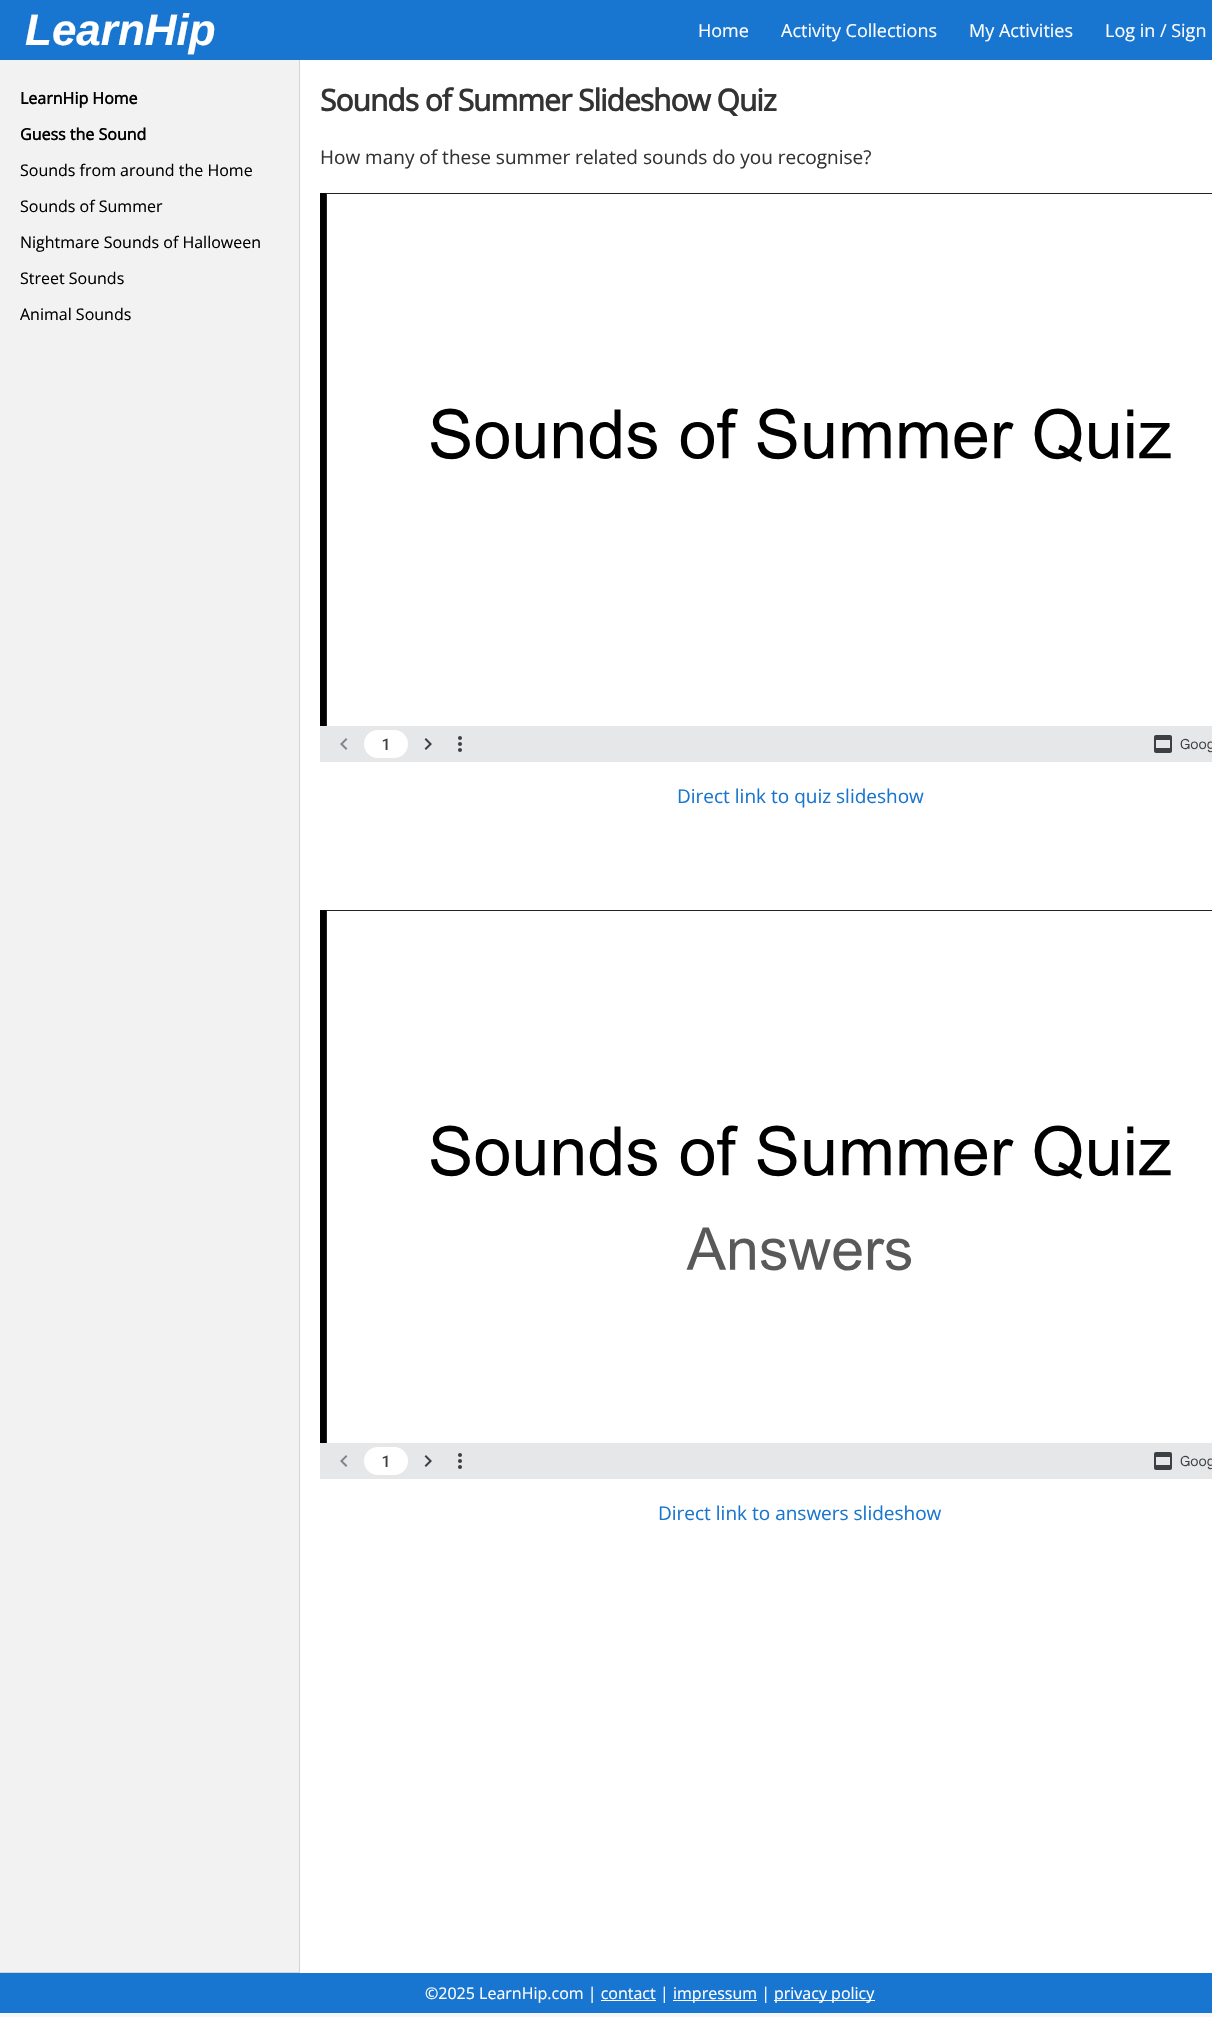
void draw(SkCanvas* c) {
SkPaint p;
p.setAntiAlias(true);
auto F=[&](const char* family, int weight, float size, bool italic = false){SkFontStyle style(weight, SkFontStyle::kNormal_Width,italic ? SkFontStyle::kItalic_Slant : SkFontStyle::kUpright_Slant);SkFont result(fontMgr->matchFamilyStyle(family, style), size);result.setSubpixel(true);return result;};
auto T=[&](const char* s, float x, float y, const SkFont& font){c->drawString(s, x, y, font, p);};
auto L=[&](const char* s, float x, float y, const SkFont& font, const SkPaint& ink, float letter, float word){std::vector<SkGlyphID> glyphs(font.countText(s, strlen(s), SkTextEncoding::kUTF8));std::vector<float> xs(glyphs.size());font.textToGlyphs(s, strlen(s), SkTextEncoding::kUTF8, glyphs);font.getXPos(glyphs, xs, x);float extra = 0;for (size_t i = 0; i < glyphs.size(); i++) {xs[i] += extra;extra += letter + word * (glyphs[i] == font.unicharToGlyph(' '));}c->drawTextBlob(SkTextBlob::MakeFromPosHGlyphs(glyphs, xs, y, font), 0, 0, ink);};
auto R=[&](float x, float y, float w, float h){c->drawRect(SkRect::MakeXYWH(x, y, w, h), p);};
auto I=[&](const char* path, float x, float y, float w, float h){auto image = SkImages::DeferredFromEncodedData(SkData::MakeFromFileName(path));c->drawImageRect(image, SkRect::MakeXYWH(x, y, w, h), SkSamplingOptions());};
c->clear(0xfff5f7f8);
p.setColor(0xff1875d0);
R(0,0,1212,60);
auto f1 = F("Liberation Sans",700,44,true);
p.setColor(0xffffffff);
T("LearnHip",25,45,f1);
auto f2 = F("Open Sans",400,18);
T("Home",698,37,f2);
T("Activity Collections",781,37,f2);
T("My Activities",969,37,f2);
T("Log in / Sign",1105,37,f2);
p.setColor(0xfff2f2f2);
R(0,60,299,1912);
p.setColor(0xffd3d3d3);
R(299,60,1,1913);
R(0,1972,300,1);
auto f3 = F("Open Sans",700,16);
p.setColor(0xff000000);
T("LearnHip Home",20,104,f3);
T("Guess the Sound",20,140,f3);
auto f4 = F("Open Sans",400,16);
T("Sounds from around the Home",20,176,f4);
T("Sounds of Summer",20,212,f4);
T("Nightmare Sounds of Halloween",20,248,f4);
T("Street Sounds",20,284,f4);
T("Animal Sounds",20,320,f4);
p.setColor(0xffffffff);
R(300,60,912,1913);
auto f5 = F("Open Sans",700,30);
p.setColor(0xff333333);
L("Sounds of Summer Slideshow Quiz",320,111,f5,p,-1,0);
auto f6 = F("Open Sans",400,19);
T("How many of these summer related sounds do you recognise?",320,164,f6);
I("1.png",320,193,892,569);
p.setColor(0xff1875d0);
T("Direct link to quiz slideshow",677,803,f6);
I("2.png",320,910,892,569);
T("Direct link to answers slideshow",658,1520,f6);
R(0,1973,1212,40);
p.setColor(0xffffffff);
T("©2025 LearnHip.com | contact |",425,1999,f4);
R(673,2000,84,1);
T("impressum |",673,1999,f4);
R(774,2000,101,1);
T("privacy policy",774,1999,f4);
R(601,2000,55,1);
}
